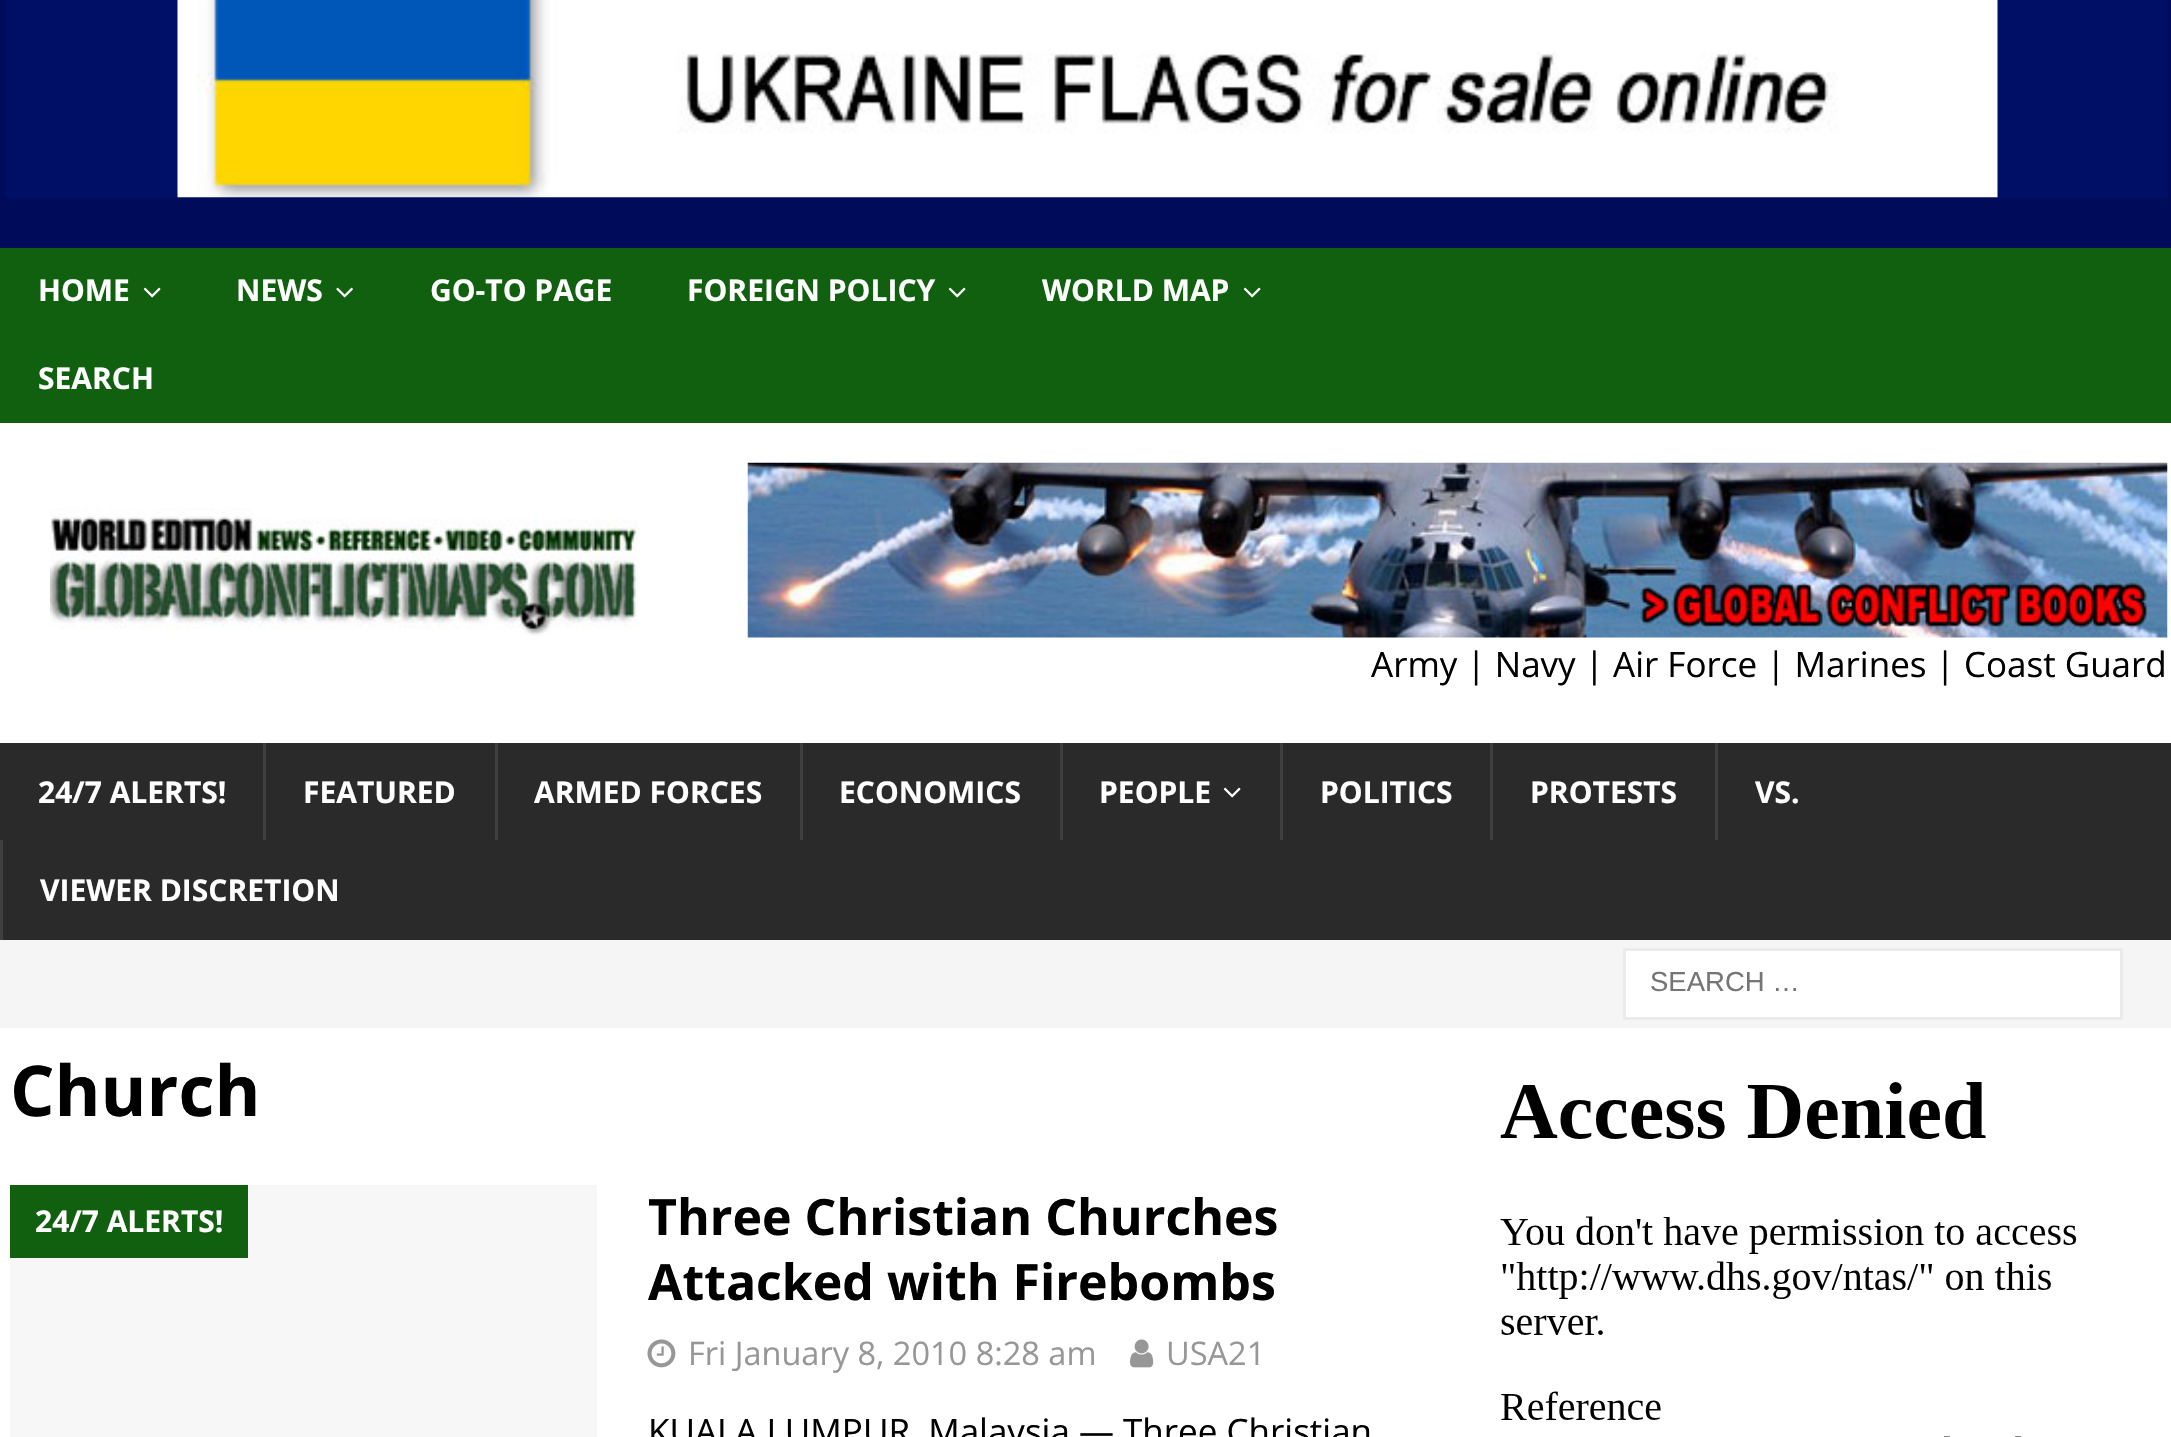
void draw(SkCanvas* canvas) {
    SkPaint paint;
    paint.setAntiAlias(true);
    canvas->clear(0xFF000B59);
    paint.setColor(0xFF000F66);
    canvas->drawRect(SkRect::MakeXYWH(5, 0, 2163, 198), paint);
    canvas->drawImageRect(SkImages::DeferredFromEncodedData(SkData::MakeFromFileName("img1.png")), SkRect::MakeXYWH(177, 0, 1821, 198), SkSamplingOptions());
    paint.setColor(0xFF116010);
    canvas->drawRect(SkRect::MakeXYWH(0, 248, 2171, 175), paint);
    SkFont font1(fontMgr->matchFamilyStyle("Open Sans", SkFontStyle::Bold()), 30);
    font1.setSubpixel(true);
    paint.setColor(0xFFFFFFFF);
    canvas->drawString("HOME", 38, 301, font1, paint);
    canvas->drawImageRect(SkImages::DeferredFromEncodedData(SkData::MakeFromFileName("img2.png")), SkRect::MakeXYWH(143, 287, 18, 11), SkSamplingOptions());
    canvas->drawString("NEWS", 236, 301, font1, paint);
    canvas->drawImageRect(SkImages::DeferredFromEncodedData(SkData::MakeFromFileName("img3.png")), SkRect::MakeXYWH(336, 287, 17, 11), SkSamplingOptions());
    canvas->drawString("GO-TO PAGE", 430, 301, font1, paint);
    canvas->drawString("FOREIGN POLICY", 687, 301, font1, paint);
    canvas->drawImageRect(SkImages::DeferredFromEncodedData(SkData::MakeFromFileName("img2.png")), SkRect::MakeXYWH(948, 287, 18, 11), SkSamplingOptions());
    canvas->drawString("WORLD MAP", 1042, 301, font1, paint);
    canvas->drawImageRect(SkImages::DeferredFromEncodedData(SkData::MakeFromFileName("img2.png")), SkRect::MakeXYWH(1243, 287, 18, 11), SkSamplingOptions());
    canvas->drawString("SEARCH", 38, 389, font1, paint);
    canvas->drawRect(SkRect::MakeXYWH(0, 423, 2171, 320), paint);
    canvas->drawImageRect(SkImages::DeferredFromEncodedData(SkData::MakeFromFileName("img4.png")), SkRect::MakeXYWH(50, 508, 588, 128), SkSamplingOptions());
    canvas->drawImageRect(SkImages::DeferredFromEncodedData(SkData::MakeFromFileName("img5.png")), SkRect::MakeXYWH(747, 462, 1421, 176), SkSamplingOptions());
    SkFont font2(fontMgr->matchFamilyStyle("Open Sans", SkFontStyle::Normal()), 35);
    font2.setSubpixel(true);
    paint.setColor(0xFF000000);
    canvas->drawString("Army | Navy | Air Force | Marines | Coast Guard", 1371, 677, font2, paint);
    paint.setColor(0xFF2A2A2A);
    canvas->drawRect(SkRect::MakeXYWH(0, 743, 2171, 197), paint);
    paint.setColor(0xFFFFFFFF);
    canvas->drawString("24/7 ALERTS!", 38, 803, font1, paint);
    paint.setColor(0xFF3F3F3F);
    canvas->drawRect(SkRect::MakeXYWH(263, 743, 3, 97), paint);
    paint.setColor(0xFFFFFFFF);
    canvas->drawString("FEATURED", 303, 803, font1, paint);
    paint.setColor(0xFF3F3F3F);
    canvas->drawRect(SkRect::MakeXYWH(495, 743, 3, 97), paint);
    paint.setColor(0xFFFFFFFF);
    canvas->drawString("ARMED FORCES", 534, 803, font1, paint);
    paint.setColor(0xFF3F3F3F);
    canvas->drawRect(SkRect::MakeXYWH(800, 743, 3, 97), paint);
    paint.setColor(0xFFFFFFFF);
    canvas->drawString("ECONOMICS", 839, 803, font1, paint);
    paint.setColor(0xFF3F3F3F);
    canvas->drawRect(SkRect::MakeXYWH(1060, 743, 3, 97), paint);
    paint.setColor(0xFFFFFFFF);
    canvas->drawString("PEOPLE", 1099, 803, font1, paint);
    canvas->drawImageRect(SkImages::DeferredFromEncodedData(SkData::MakeFromFileName("img6.png")), SkRect::MakeXYWH(1223, 787, 18, 11), SkSamplingOptions());
    paint.setColor(0xFF3F3F3F);
    canvas->drawRect(SkRect::MakeXYWH(1280, 743, 3, 97), paint);
    paint.setColor(0xFFFFFFFF);
    canvas->drawString("POLITICS", 1320, 803, font1, paint);
    paint.setColor(0xFF3F3F3F);
    canvas->drawRect(SkRect::MakeXYWH(1490, 743, 3, 97), paint);
    paint.setColor(0xFFFFFFFF);
    canvas->drawString("PROTESTS", 1530, 803, font1, paint);
    paint.setColor(0xFF3F3F3F);
    canvas->drawRect(SkRect::MakeXYWH(1715, 743, 3, 97), paint);
    paint.setColor(0xFFFFFFFF);
    canvas->drawString("VS.", 1755, 803, font1, paint);
    paint.setColor(0xFF3F3F3F);
    canvas->drawRect(SkRect::MakeXYWH(0, 840, 3, 100), paint);
    paint.setColor(0xFFFFFFFF);
    canvas->drawString("VIEWER DISCRETION", 40, 901, font1, paint);
    paint.setColor(0xFFF5F5F5);
    canvas->drawRect(SkRect::MakeXYWH(0, 940, 2171, 88), paint);
    paint.setColor(0xFFFFFFFF);
    canvas->drawRect(SkRect::MakeXYWH(1624.5f, 949.5f, 497, 69), paint);
    paint.setStyle(SkPaint::kStroke_Style);
    paint.setStrokeWidth(3);
    paint.setColor(0xFFEBEBEB);
    canvas->drawRect(SkRect::MakeXYWH(1624.5f, 949.5f, 497, 69), paint);
    SkFont font3(fontMgr->matchFamilyStyle("Liberation Sans", SkFontStyle::Normal()), 27.5f);
    font3.setSubpixel(true);
    paint.setStyle(SkPaint::kFill_Style);
    paint.setColor(0xFF757575);
    canvas->drawString("SEARCH …", 1650, 991, font3, paint);
    paint.setColor(0xFFFFFFFF);
    canvas->drawRect(SkRect::MakeXYWH(0, 1028, 2171, 409), paint);
    SkFont font4(fontMgr->matchFamilyStyle("Open Sans", SkFontStyle::Bold()), 70);
    font4.setSubpixel(true);
    paint.setColor(0xFF000000);
    canvas->drawString("Church", 10, 1116, font4, paint);
    paint.setColor(0xFFF7F7F7);
    canvas->drawRect(SkRect::MakeXYWH(10, 1185, 587, 252), paint);
    paint.setColor(0xFF116010);
    canvas->drawRect(SkRect::MakeXYWH(10, 1185, 238, 73), paint);
    paint.setColor(0xFFFFFFFF);
    canvas->drawString("24/7 ALERTS!", 35, 1232, font1, paint);
    SkFont font5(fontMgr->matchFamilyStyle("Open Sans", SkFontStyle::Bold()), 50);
    font5.setSubpixel(true);
    paint.setColor(0xFF000000);
    canvas->drawString("Three Christian Churches", 648, 1235, font5, paint);
    canvas->drawString("Attacked with Firebombs", 648, 1300, font5, paint);
    canvas->drawImageRect(SkImages::DeferredFromEncodedData(SkData::MakeFromFileName("img7.png")), SkRect::MakeXYWH(647, 1339, 29, 29), SkSamplingOptions());
    SkFont font6(fontMgr->matchFamilyStyle("Open Sans", SkFontStyle::Normal()), 32.5f);
    font6.setSubpixel(true);
    paint.setColor(0xFF979797);
    canvas->drawString("Fri January 8, 2010 8:28 am", 688, 1365, font6, paint);
    canvas->drawImageRect(SkImages::DeferredFromEncodedData(SkData::MakeFromFileName("img8.png")), SkRect::MakeXYWH(1130, 1339, 24, 29), SkSamplingOptions());
    canvas->drawString("USA21", 1166, 1365, font6, paint);
    paint.setColor(0xFF000000);
    canvas->drawString("KUALA LUMPUR, Malaysia — Three Christian", 648, 1444, font2, paint);
    canvas->drawImageRect(SkImages::DeferredFromEncodedData(SkData::MakeFromFileName("img9.png")), SkRect::MakeXYWH(1500, 1082, 577, 355), SkSamplingOptions());
}
